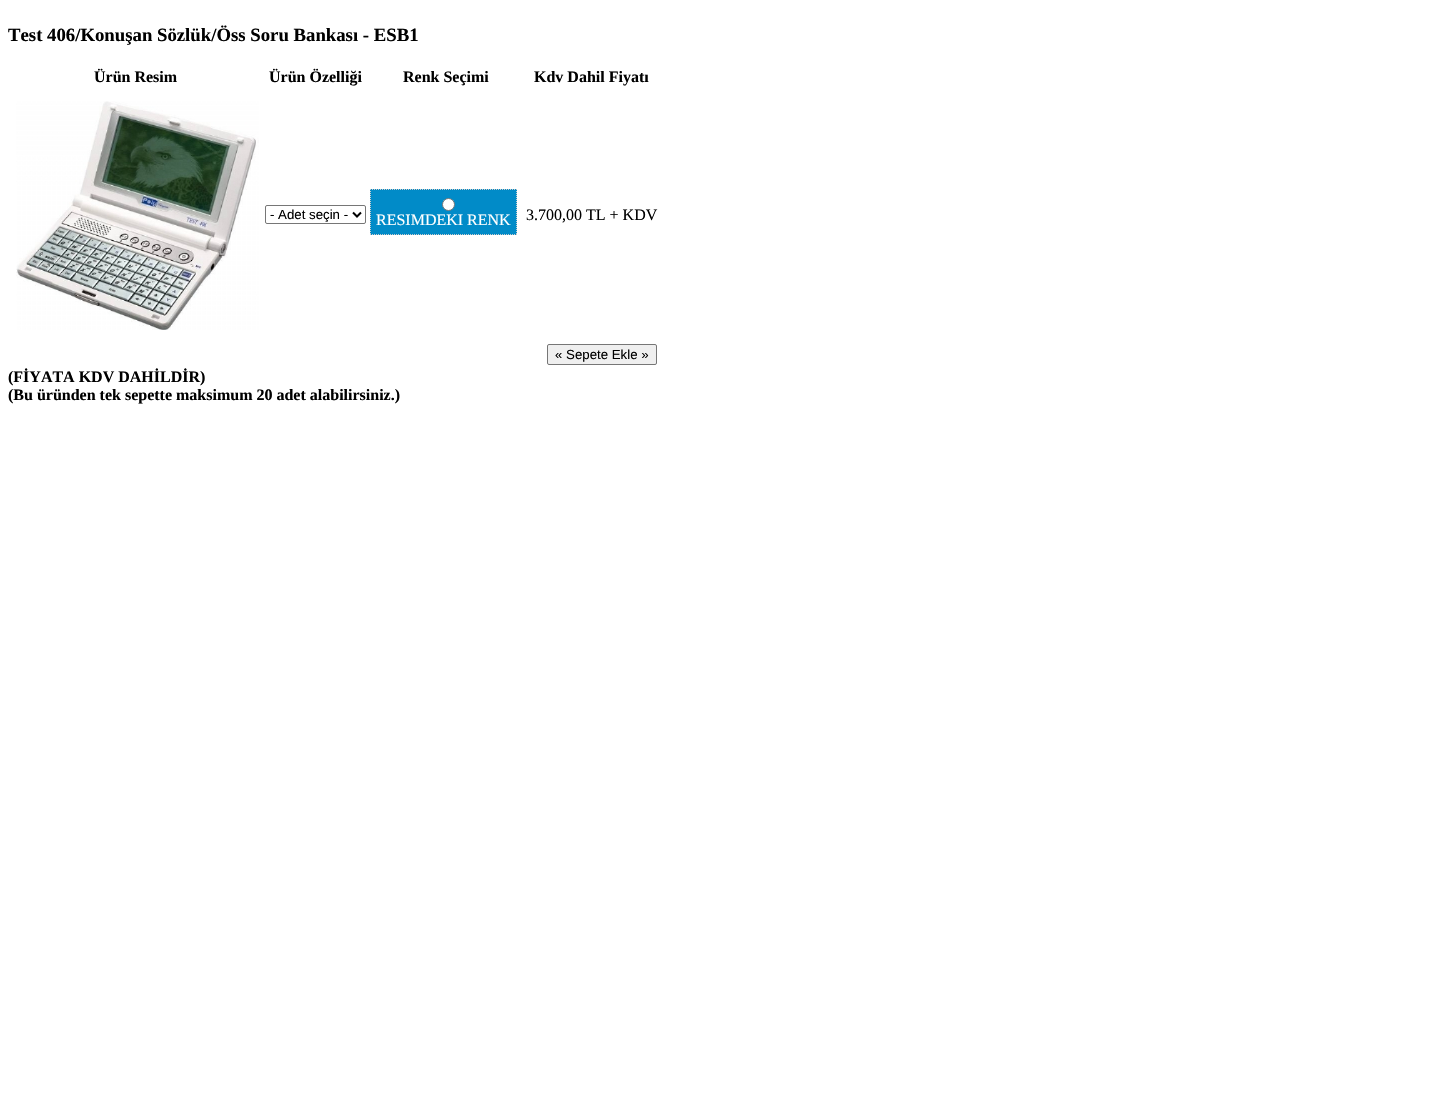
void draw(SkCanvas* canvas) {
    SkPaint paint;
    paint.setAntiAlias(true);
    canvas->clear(0xFFFFFFFF);
    SkFont font1(fontMgr->matchFamilyStyle("Liberation Serif", SkFontStyle::Bold()), 18.75f);
    font1.setSubpixel(true);
    paint.setColor(0xFF000000);
    canvas->drawString("Test 406/Konuşan Sözlük/Öss Soru Bankası - ESB1", 8, 41, font1, paint);
    SkFont font2(fontMgr->matchFamilyStyle("Liberation Serif", SkFontStyle::Bold()), 16);
    font2.setSubpixel(true);
    canvas->drawString("Ürün Resim", 94, 82, font2, paint);
    canvas->drawString("Ürün Özelliği", 269, 82, font2, paint);
    canvas->drawString("Renk Seçimi", 403, 82, font2, paint);
    canvas->drawString("Kdv Dahil Fiyatı", 534, 82, font2, paint);
    canvas->drawImageRect(SkImages::DeferredFromEncodedData(SkData::MakeFromFileName("img1.png")), SkRect::MakeXYWH(16, 101, 243, 229), SkSamplingOptions());
    paint.setStyle(SkPaint::kStroke_Style);
    paint.setStrokeWidth(1);
    paint.setColor(0xFF767676);
    canvas->drawRoundRect(SkRect::MakeXYWH(265.5f, 205.5f, 100, 18), 1.5f, 1.5f, paint);
    paint.setStrokeWidth(2);
    paint.setColor(0xFF000000);
    canvas->drawPath(SkPathBuilder().moveTo(353, 212.5f).lineTo(357, 216.5f).lineTo(361, 212.5f).detach(), paint);
    SkFont font3(fontMgr->matchFamilyStyle("Liberation Sans", SkFontStyle::Normal()), 13.25f);
    font3.setSubpixel(true);
    paint.setStyle(SkPaint::kFill_Style);
    canvas->drawString("- Adet seçin -", 270, 219, font3, paint);
    paint.setColor(0xFF018BC8);
    canvas->drawRect(SkRect::MakeXYWH(370, 189, 147, 46), paint);
    paint.setStyle(SkPaint::kStroke_Style);
    paint.setStrokeWidth(1);
    paint.setColor(0xFFCCCCCC);
    paint.setPathEffect(SkDashPathEffect::Make({{1, 1}}, 0));
    canvas->drawPath(SkPathBuilder().moveTo(370, 189.5f).lineTo(517, 189.5f).detach(), paint);
    paint.setPathEffect(nullptr);
    paint.setPathEffect(SkDashPathEffect::Make({{1, 1}}, 0));
    canvas->drawPath(SkPathBuilder().moveTo(516.5f, 189).lineTo(516.5f, 235).detach(), paint);
    paint.setPathEffect(nullptr);
    paint.setPathEffect(SkDashPathEffect::Make({{1, 1}}, 0));
    canvas->drawPath(SkPathBuilder().moveTo(370, 234.5f).lineTo(517, 234.5f).detach(), paint);
    paint.setPathEffect(nullptr);
    paint.setPathEffect(SkDashPathEffect::Make({{1, 1}}, 0));
    canvas->drawPath(SkPathBuilder().moveTo(370.5f, 189).lineTo(370.5f, 235).detach(), paint);
    paint.setPathEffect(nullptr);
    paint.setStyle(SkPaint::kFill_Style);
    paint.setColor(0xFFFFFFFF);
    canvas->drawCircle(448.5f, 204.5f, 6, paint);
    paint.setStyle(SkPaint::kStroke_Style);
    paint.setColor(0xFF767676);
    canvas->drawCircle(448.5f, 204.5f, 6, paint);
    SkFont font4(fontMgr->matchFamilyStyle("Liberation Serif", SkFontStyle::Normal()), 16);
    font4.setSubpixel(true);
    paint.setStyle(SkPaint::kFill_Style);
    paint.setColor(0xFFFFFFFF);
    canvas->drawString("RESIMDEKI RENK", 376, 225, font4, paint);
    paint.setColor(0xFF000000);
    canvas->drawString("3.700,00 TL + KDV", 526, 220, font4, paint);
    paint.setColor(0xFFEFEFEF);
    canvas->drawRoundRect(SkRect::MakeXYWH(547.5f, 344.5f, 109, 20), 1.5f, 1.5f, paint);
    paint.setStyle(SkPaint::kStroke_Style);
    paint.setColor(0xFF767676);
    canvas->drawRoundRect(SkRect::MakeXYWH(547.5f, 344.5f, 109, 20), 1.5f, 1.5f, paint);
    paint.setStyle(SkPaint::kFill_Style);
    paint.setColor(0xFF000000);
    canvas->drawString("« Sepete Ekle »", 555, 359, font3, paint);
    canvas->drawString("(FİYATA KDV DAHİLDİR)", 8, 382, font2, paint);
    canvas->drawString("(Bu üründen tek sepette maksimum 20 adet alabilirsiniz.)", 8, 400, font2, paint);
}
